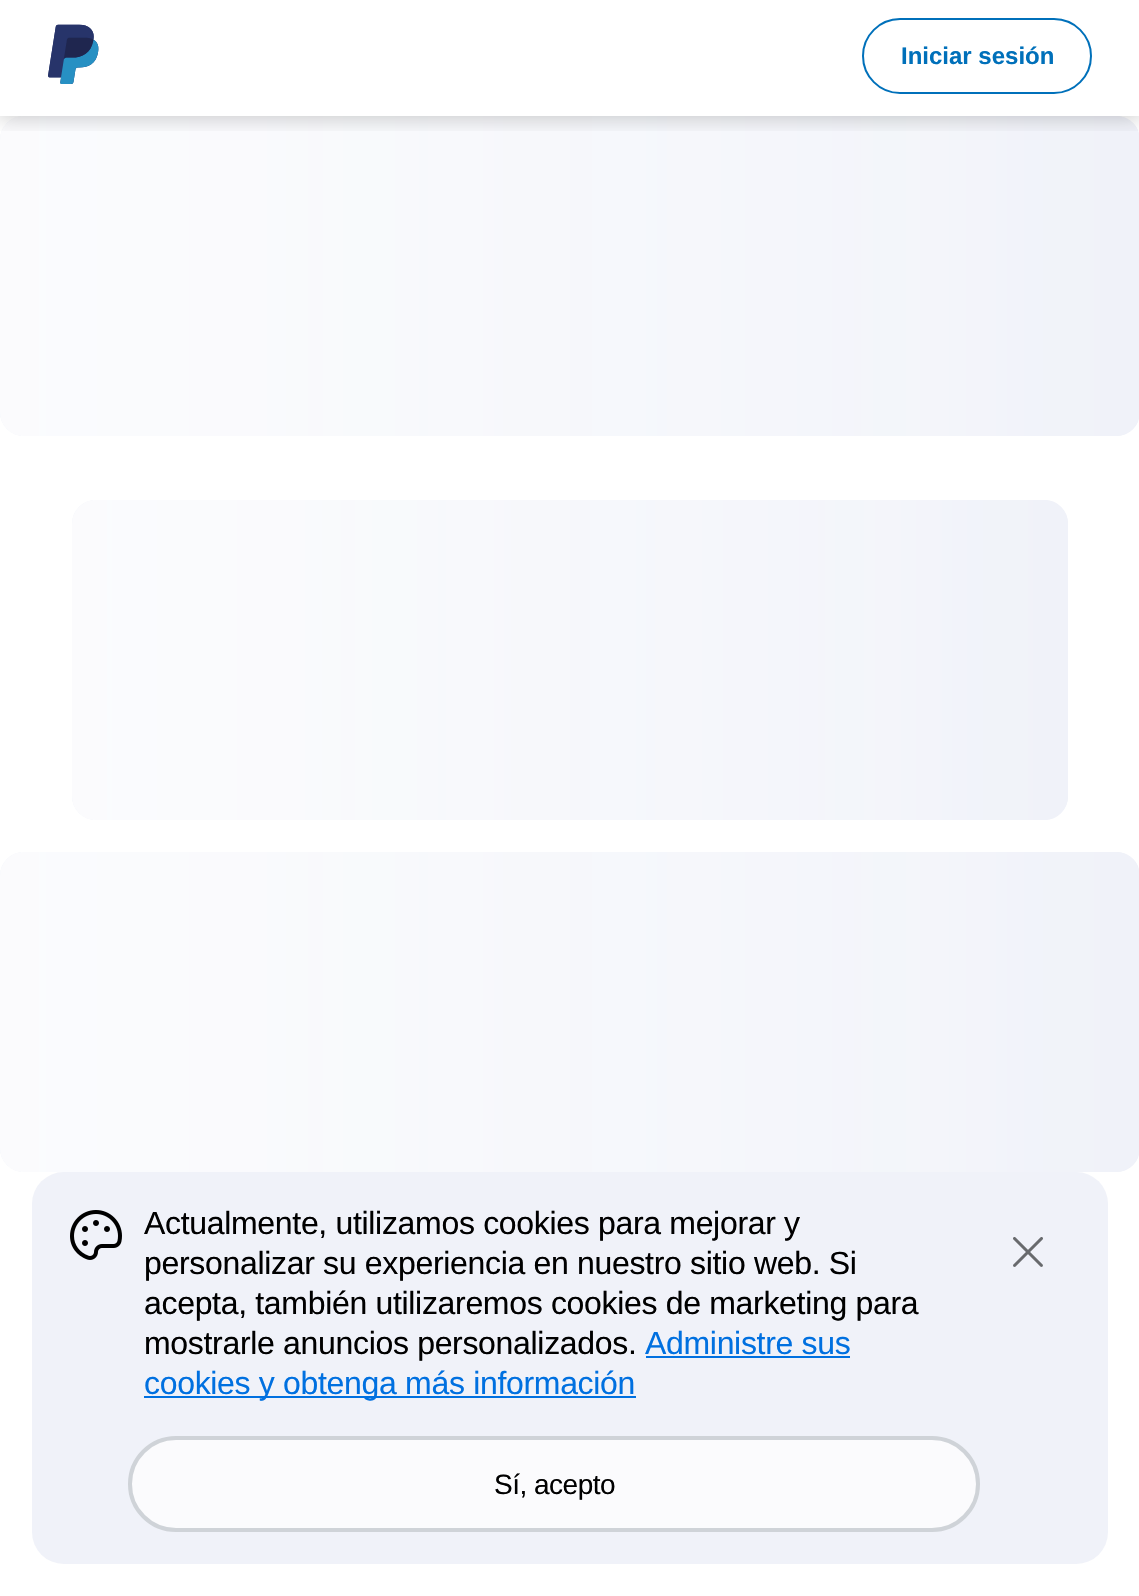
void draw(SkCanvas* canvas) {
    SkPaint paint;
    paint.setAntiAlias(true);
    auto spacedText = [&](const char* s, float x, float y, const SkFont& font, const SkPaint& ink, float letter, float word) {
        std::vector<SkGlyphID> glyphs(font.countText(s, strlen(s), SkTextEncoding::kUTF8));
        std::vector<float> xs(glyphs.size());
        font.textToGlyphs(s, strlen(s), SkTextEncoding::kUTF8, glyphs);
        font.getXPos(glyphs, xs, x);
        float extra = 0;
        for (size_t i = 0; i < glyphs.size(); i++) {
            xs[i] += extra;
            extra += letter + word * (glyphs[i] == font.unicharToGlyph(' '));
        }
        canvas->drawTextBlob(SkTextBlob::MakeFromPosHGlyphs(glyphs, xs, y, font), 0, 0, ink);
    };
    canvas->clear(0xFFFFFFFF);
    paint.setColor(0xFFF0F2F9);
    canvas->drawRoundRect(SkRect::MakeXYWH(0, 116, 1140, 320), 24, 24, paint);
    canvas->save();
    canvas->clipPath(SkPathBuilder().moveTo(24, 116).lineTo(1116, 116).cubicTo(1129.5f, 116, 1140, 126.5f, 1140, 140).lineTo(1140, 412).cubicTo(1140, 425.5f, 1129.5f, 436, 1116, 436).lineTo(24, 436).cubicTo(10.5f, 436, 0, 425.5f, 0, 412).lineTo(0, 140).cubicTo(0, 126.5f, 10.5f, 116, 24, 116).close().detach(), true);
    {
        const SkColor colors[] = {0xFFF0F2F9, 0xB3FFFFFF, 0xFFF0F2F9};
        const float stops[] = {0, 0.5f, 1};
        const SkPoint ends[] = {{-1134, 276}, {1138, 276}};
        paint.setShader(SkGradientShader::MakeLinear(ends, colors, stops, 3, SkTileMode::kClamp));
        paint.setAlpha(255);
    }
    canvas->drawPath(SkPathBuilder().moveTo(24, 116).lineTo(1138, 116).lineTo(1138, 436).lineTo(24, 436).cubicTo(10.5f, 436, 0, 425.5f, 0, 412).lineTo(0, 140).cubicTo(0, 126.5f, 10.5f, 116, 24, 116).close().detach(), paint);
    canvas->restore();
    canvas->save();
    canvas->clipRect(SkRect::MakeXYWH(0, 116, 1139, 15));
    paint.setShader(nullptr);
    paint.setColor(0x33000000);
    paint.setMaskFilter(SkMaskFilter::MakeBlur(kNormal_SkBlurStyle, 10));
    canvas->drawRect(SkRect::MakeXYWH(-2, -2, 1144, 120), paint);
    paint.setMaskFilter(nullptr);
    canvas->restore();
    canvas->drawImageRect(SkImages::DeferredFromEncodedData(SkData::MakeFromFileName("img1.png")), SkRect::MakeXYWH(48, 24, 51, 60), SkSamplingOptions());
    paint.setStyle(SkPaint::kStroke_Style);
    paint.setStrokeWidth(2);
    paint.setColor(0xFF0070BA);
    canvas->drawRoundRect(SkRect::MakeXYWH(863, 19, 228, 74), 37, 37, paint);
    SkFont font1(fontMgr->matchFamilyStyle("Liberation Sans", SkFontStyle::Bold()), 24);
    font1.setSubpixel(true);
    paint.setStyle(SkPaint::kFill_Style);
    canvas->drawString("Iniciar sesión", 901, 64, font1, paint);
    paint.setColor(0xFFF0F2F9);
    canvas->drawRoundRect(SkRect::MakeXYWH(72, 500, 996, 320), 24, 24, paint);
    canvas->save();
    canvas->clipPath(SkPathBuilder().moveTo(96, 500).lineTo(1044, 500).cubicTo(1057.5f, 500, 1068, 510.5f, 1068, 524).lineTo(1068, 796).cubicTo(1068, 809.5f, 1057.5f, 820, 1044, 820).lineTo(96, 820).cubicTo(82.5f, 820, 72, 809.5f, 72, 796).lineTo(72, 524).cubicTo(72, 510.5f, 82.5f, 500, 96, 500).close().detach(), true);
    {
        const SkColor colors[] = {0xFFF0F2F9, 0xB3FFFFFF, 0xFFF0F2F9};
        const float stops[] = {0, 0.5f, 1};
        const SkPoint ends[] = {{-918, 660}, {1066, 660}};
        paint.setShader(SkGradientShader::MakeLinear(ends, colors, stops, 3, SkTileMode::kClamp));
        paint.setAlpha(255);
    }
    canvas->drawPath(SkPathBuilder().moveTo(96, 500).lineTo(1066, 500).lineTo(1066, 820).lineTo(96, 820).cubicTo(82.5f, 820, 72, 809.5f, 72, 796).lineTo(72, 524).cubicTo(72, 510.5f, 82.5f, 500, 96, 500).close().detach(), paint);
    {
        const SkColor colors[] = {0xFFF0F2F9, 0xB3FFFFFF, 0xFFF0F2F9};
        const float stops[] = {0, 0.5f, 1};
        const SkPoint ends[] = {{1066, 660}, {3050, 660}};
        paint.setShader(SkGradientShader::MakeLinear(ends, colors, stops, 3, SkTileMode::kClamp));
        paint.setAlpha(255);
    }
    canvas->drawRect(SkRect::MakeXYWH(1066, 514, 2, 292), paint);
    canvas->restore();
    paint.setShader(nullptr);
    paint.setColor(0xFFF0F2F9);
    canvas->drawRoundRect(SkRect::MakeXYWH(0, 852, 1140, 320), 24, 24, paint);
    canvas->save();
    canvas->clipPath(SkPathBuilder().moveTo(24, 852).lineTo(1116, 852).cubicTo(1129.5f, 852, 1140, 862.5f, 1140, 876).lineTo(1140, 1148).cubicTo(1140, 1161.5f, 1129.5f, 1172, 1116, 1172).lineTo(24, 1172).cubicTo(10.5f, 1172, 0, 1161.5f, 0, 1148).lineTo(0, 876).cubicTo(0, 862.5f, 10.5f, 852, 24, 852).close().detach(), true);
    {
        const SkColor colors[] = {0xFFF0F2F9, 0xB3FFFFFF, 0xFFF0F2F9};
        const float stops[] = {0, 0.5f, 1};
        const SkPoint ends[] = {{-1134, 1012}, {1138, 1012}};
        paint.setShader(SkGradientShader::MakeLinear(ends, colors, stops, 3, SkTileMode::kClamp));
        paint.setAlpha(255);
    }
    canvas->drawPath(SkPathBuilder().moveTo(24, 852).lineTo(1138, 852).lineTo(1138, 1172).lineTo(24, 1172).cubicTo(10.5f, 1172, 0, 1161.5f, 0, 1148).lineTo(0, 876).cubicTo(0, 862.5f, 10.5f, 852, 24, 852).close().detach(), paint);
    canvas->restore();
    paint.setShader(nullptr);
    paint.setColor(0xFFF0F2F9);
    canvas->drawRoundRect(SkRect::MakeXYWH(32, 1172, 1076, 392), 32, 32, paint);
    canvas->drawImageRect(SkImages::DeferredFromEncodedData(SkData::MakeFromFileName("img2.png")), SkRect::MakeXYWH(70, 1210, 52, 50), SkSamplingOptions());
    SkFont font2(fontMgr->matchFamilyStyle("Liberation Sans", SkFontStyle::Normal()), 32);
    font2.setSubpixel(true);
    paint.setColor(0xFF000000);
    spacedText("Actualmente, utilizamos cookies para mejorar y", 144, 1234, font2, paint, -0.32f, 0);
    spacedText("personalizar su experiencia en nuestro sitio web. Si", 144, 1274, font2, paint, -0.32f, 0);
    spacedText("acepta, también utilizaremos cookies de marketing para", 144, 1314, font2, paint, -0.32f, 0);
    spacedText("mostrarle anuncios personalizados.", 144, 1354, font2, paint, -0.32f, 0);
    paint.setColor(0xFF0070E0);
    spacedText("Administre sus", 645, 1354, font2, paint, -0.32f, 0);
    canvas->drawRect(SkRect::MakeXYWH(646, 1356, 204, 2), paint);
    canvas->drawRect(SkRect::MakeXYWH(144, 1396, 492, 2), paint);
    spacedText("cookies y obtenga más información", 144, 1394, font2, paint, -0.32f, 0);
    paint.setColor(0xFFFBFBFD);
    canvas->drawRoundRect(SkRect::MakeXYWH(130, 1438, 848, 92), 46, 46, paint);
    paint.setStyle(SkPaint::kStroke_Style);
    paint.setStrokeWidth(4);
    paint.setColor(0xFFCFD3D8);
    canvas->drawRoundRect(SkRect::MakeXYWH(130, 1438, 848, 92), 46, 46, paint);
    SkFont font3(fontMgr->matchFamilyStyle("Liberation Sans", SkFontStyle::Normal()), 28);
    font3.setSubpixel(true);
    paint.setStyle(SkPaint::kFill_Style);
    paint.setColor(0xFF000000);
    spacedText("Sí, acepto", 494, 1494, font3, paint, -0.5f, 0);
    canvas->drawImageRect(SkImages::DeferredFromEncodedData(SkData::MakeFromFileName("img3.png")), SkRect::MakeXYWH(1013, 1237, 30, 30), SkSamplingOptions());
}
